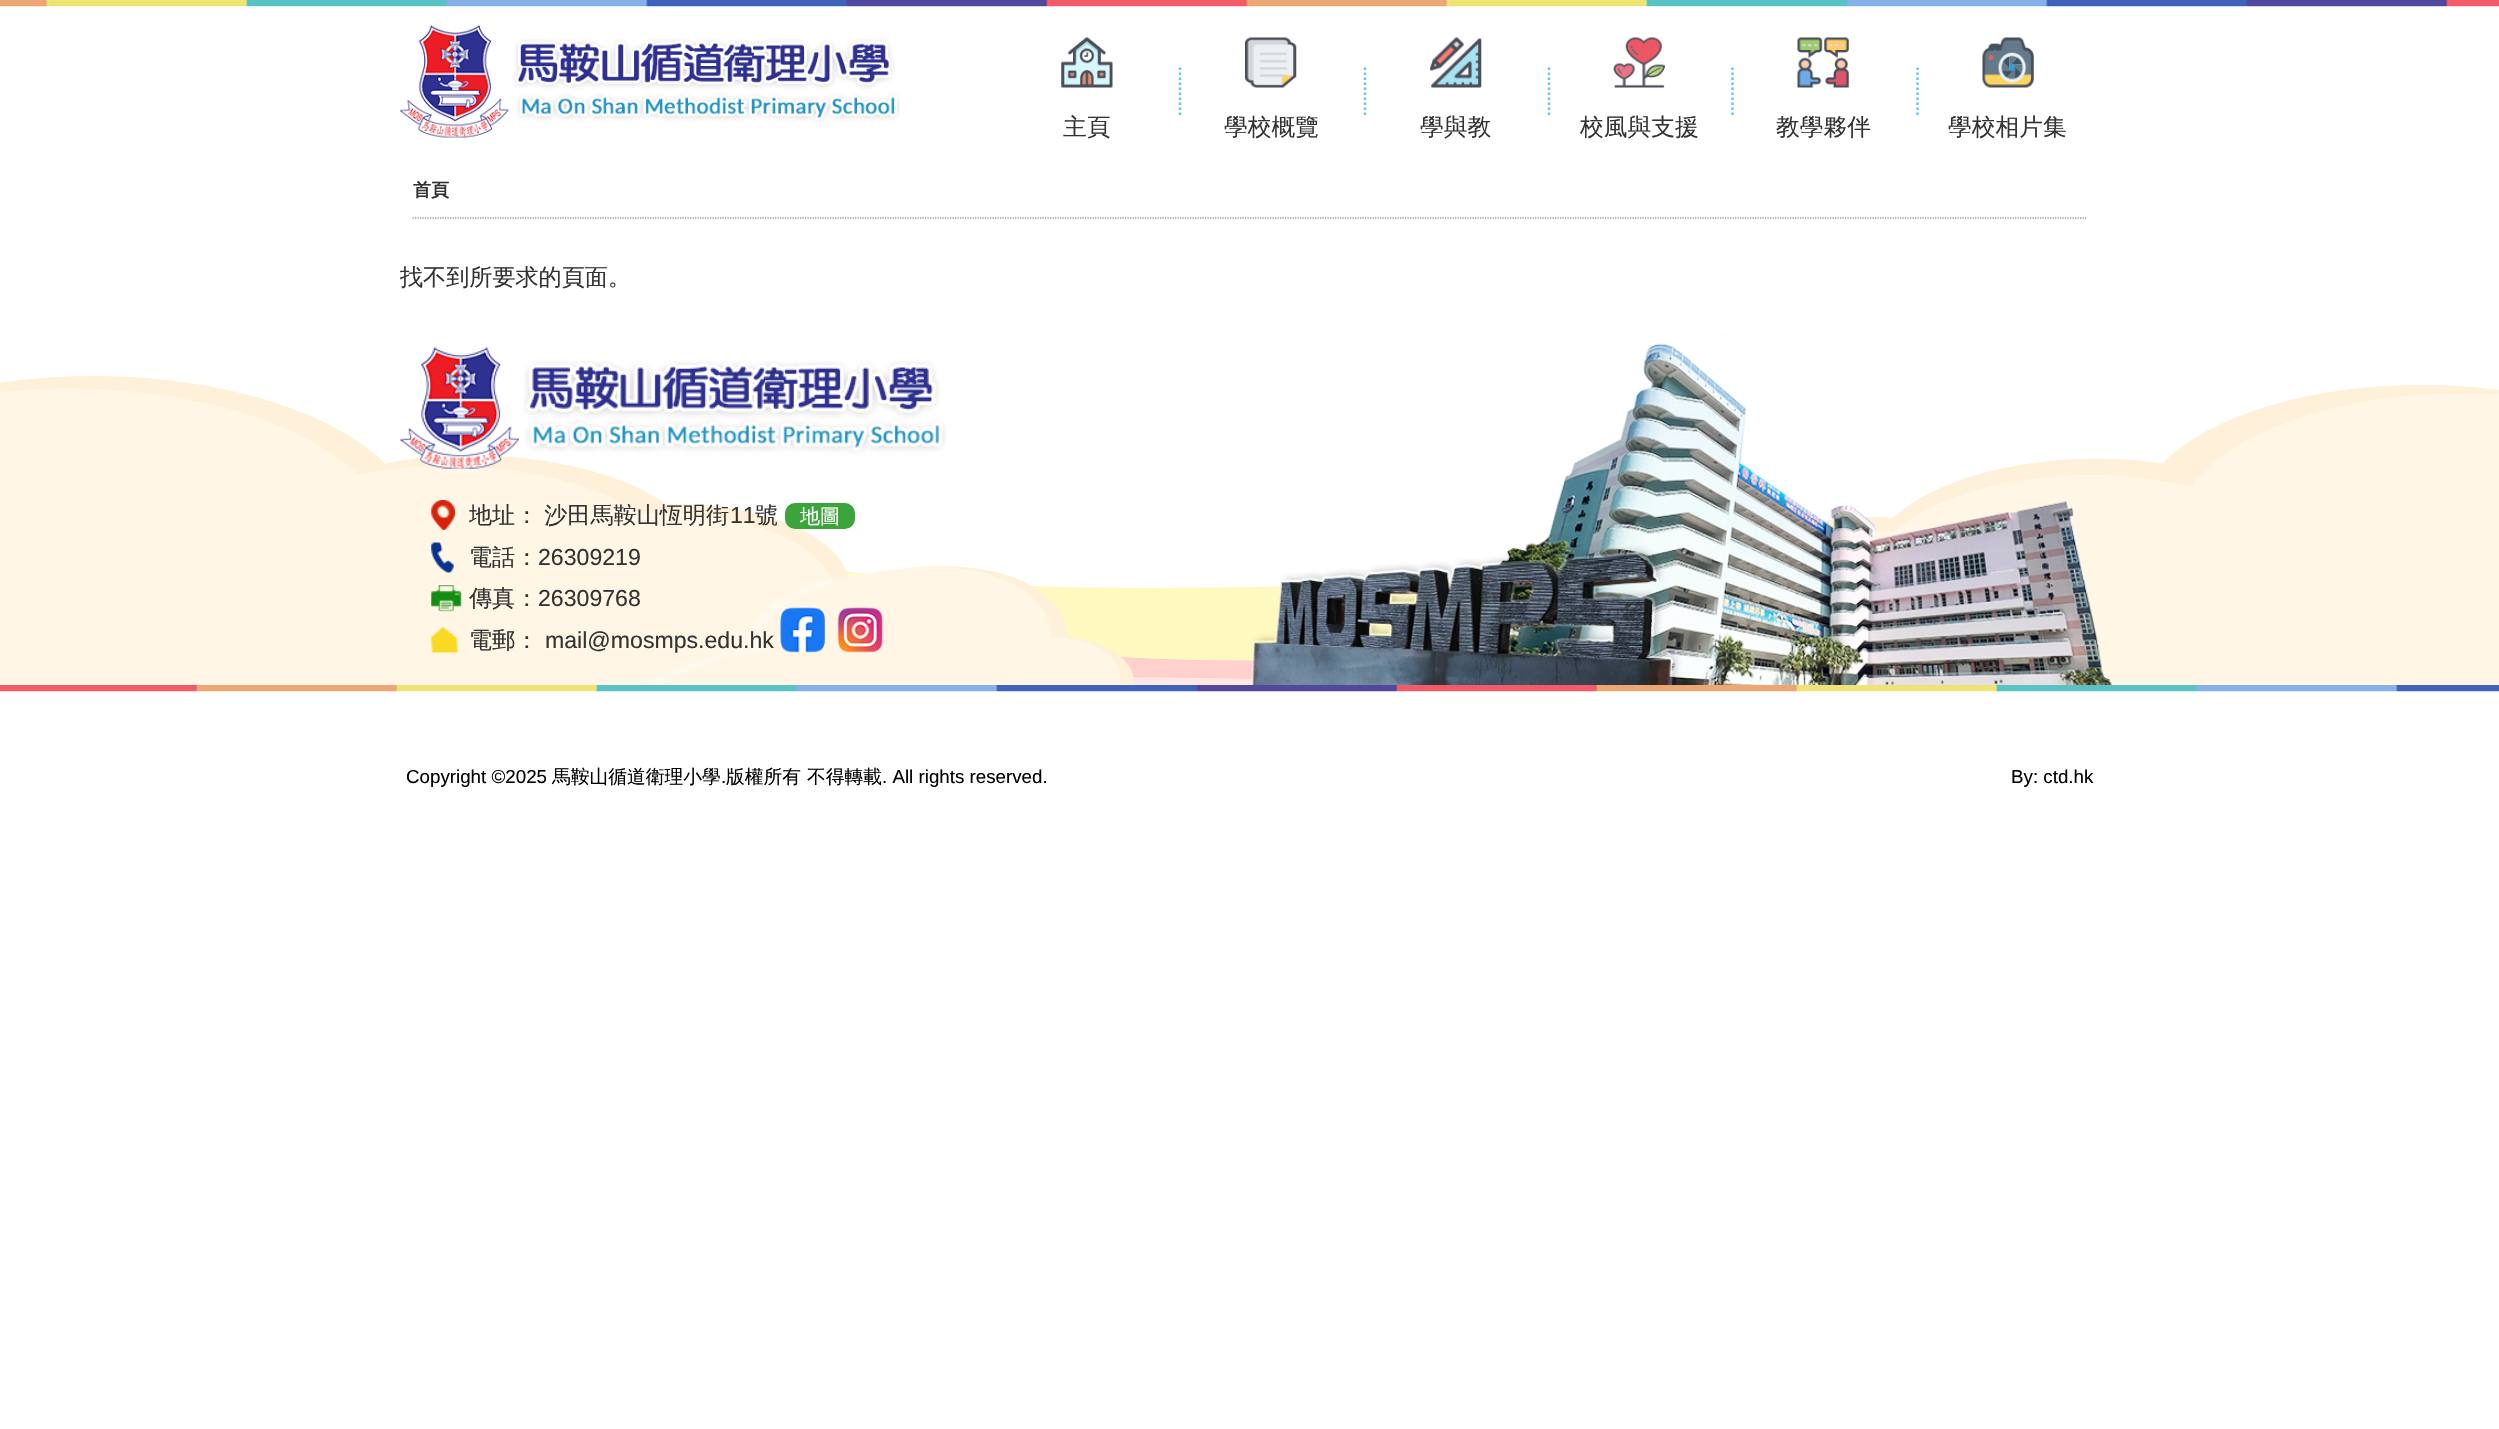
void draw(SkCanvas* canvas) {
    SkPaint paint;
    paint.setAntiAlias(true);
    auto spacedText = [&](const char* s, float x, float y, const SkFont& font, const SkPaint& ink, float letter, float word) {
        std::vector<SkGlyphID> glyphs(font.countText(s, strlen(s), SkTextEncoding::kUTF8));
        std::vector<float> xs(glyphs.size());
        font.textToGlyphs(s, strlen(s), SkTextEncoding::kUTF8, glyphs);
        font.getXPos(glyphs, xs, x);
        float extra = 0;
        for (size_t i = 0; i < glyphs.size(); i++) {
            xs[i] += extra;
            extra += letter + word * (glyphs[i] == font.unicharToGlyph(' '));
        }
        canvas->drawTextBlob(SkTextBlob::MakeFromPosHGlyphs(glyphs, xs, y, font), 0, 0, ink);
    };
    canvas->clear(0xFFFFFFFF);
    canvas->drawImageRect(SkImages::DeferredFromEncodedData(SkData::MakeFromFileName("img1.png")), SkRect::MakeXYWH(0, 0, 2499, 7), SkSamplingOptions());
    canvas->drawImageRect(SkImages::DeferredFromEncodedData(SkData::MakeFromFileName("img2.png")), SkRect::MakeXYWH(400, 25, 500, 113), SkSamplingOptions());
    canvas->drawImageRect(SkImages::DeferredFromEncodedData(SkData::MakeFromFileName("img3.png")), SkRect::MakeXYWH(1061, 37, 52, 51), SkSamplingOptions());
    SkFont font1(fontMgr->matchFamilyStyle("WenQuanYi Zen Hei", SkFontStyle(500, SkFontStyle::kNormal_Width, SkFontStyle::kUpright_Slant)), 23.75f);
    font1.setSubpixel(true);
    paint.setColor(0xFF333333);
    canvas->drawString("主頁", 1063, 135, font1, paint);
    paint.setStyle(SkPaint::kStroke_Style);
    paint.setStrokeWidth(2.5f);
    paint.setColor(0xFF69C6F1);
    paint.setPathEffect(SkDashPathEffect::Make({{2.5f, 2.5f}}, 0));
    canvas->drawPath(SkPathBuilder().moveTo(1180, 67.5f).lineTo(1180, 117.5f).detach(), paint);
    paint.setPathEffect(nullptr);
    canvas->drawImageRect(SkImages::DeferredFromEncodedData(SkData::MakeFromFileName("img4.png")), SkRect::MakeXYWH(1245, 37, 52, 51), SkSamplingOptions());
    paint.setStyle(SkPaint::kFill_Style);
    paint.setColor(0xFF333333);
    canvas->drawString("學校概覽", 1224, 135, font1, paint);
    paint.setStyle(SkPaint::kStroke_Style);
    paint.setColor(0xFF69C6F1);
    paint.setPathEffect(SkDashPathEffect::Make({{2.5f, 2.5f}}, 0));
    canvas->drawPath(SkPathBuilder().moveTo(1365, 67.5f).lineTo(1365, 117.5f).detach(), paint);
    paint.setPathEffect(nullptr);
    canvas->drawImageRect(SkImages::DeferredFromEncodedData(SkData::MakeFromFileName("img5.png")), SkRect::MakeXYWH(1430, 37, 52, 51), SkSamplingOptions());
    paint.setStyle(SkPaint::kFill_Style);
    paint.setColor(0xFF333333);
    canvas->drawString("學與教", 1420, 135, font1, paint);
    paint.setStyle(SkPaint::kStroke_Style);
    paint.setColor(0xFF69C6F1);
    paint.setPathEffect(SkDashPathEffect::Make({{2.5f, 2.5f}}, 0));
    canvas->drawPath(SkPathBuilder().moveTo(1549, 67.5f).lineTo(1549, 117.5f).detach(), paint);
    paint.setPathEffect(nullptr);
    canvas->drawImageRect(SkImages::DeferredFromEncodedData(SkData::MakeFromFileName("img6.png")), SkRect::MakeXYWH(1613, 37, 52, 51), SkSamplingOptions());
    paint.setStyle(SkPaint::kFill_Style);
    paint.setColor(0xFF333333);
    canvas->drawString("校風與支援", 1580, 135, font1, paint);
    paint.setStyle(SkPaint::kStroke_Style);
    paint.setColor(0xFF69C6F1);
    paint.setPathEffect(SkDashPathEffect::Make({{2.5f, 2.5f}}, 0));
    canvas->drawPath(SkPathBuilder().moveTo(1732.5f, 67.5f).lineTo(1732.5f, 117.5f).detach(), paint);
    paint.setPathEffect(nullptr);
    canvas->drawImageRect(SkImages::DeferredFromEncodedData(SkData::MakeFromFileName("img7.png")), SkRect::MakeXYWH(1797, 37, 52, 51), SkSamplingOptions());
    paint.setStyle(SkPaint::kFill_Style);
    paint.setColor(0xFF333333);
    canvas->drawString("教學夥伴", 1776, 135, font1, paint);
    paint.setStyle(SkPaint::kStroke_Style);
    paint.setColor(0xFF69C6F1);
    paint.setPathEffect(SkDashPathEffect::Make({{2.5f, 2.5f}}, 0));
    canvas->drawPath(SkPathBuilder().moveTo(1917.5f, 67.5f).lineTo(1917.5f, 117.5f).detach(), paint);
    paint.setPathEffect(nullptr);
    canvas->drawImageRect(SkImages::DeferredFromEncodedData(SkData::MakeFromFileName("img8.png")), SkRect::MakeXYWH(1982, 37, 52, 51), SkSamplingOptions());
    paint.setStyle(SkPaint::kFill_Style);
    paint.setColor(0xFF333333);
    canvas->drawString("學校相片集", 1948, 135, font1, paint);
    paint.setStyle(SkPaint::kStroke_Style);
    paint.setStrokeWidth(1.2f);
    paint.setColor(0xFF666666);
    paint.setPathEffect(SkDashPathEffect::Make({{1.25f, 1.25f}}, 0));
    canvas->drawPath(SkPathBuilder().moveTo(412.5f, 218).lineTo(2087.5f, 218).detach(), paint);
    paint.setPathEffect(nullptr);
    SkFont font2(fontMgr->matchFamilyStyle("WenQuanYi Zen Hei", SkFontStyle::Bold()), 18);
    font2.setSubpixel(true);
    paint.setStyle(SkPaint::kFill_Style);
    paint.setColor(0xFF333333);
    canvas->drawString("首頁", 413, 196, font2, paint);
    SkFont font3(fontMgr->matchFamilyStyle("WenQuanYi Zen Hei", SkFontStyle(500, SkFontStyle::kNormal_Width, SkFontStyle::kUpright_Slant)), 23.1f);
    font3.setSubpixel(true);
    canvas->drawString("找不到所要求的頁面。", 400, 285, font3, paint);
    canvas->drawImageRect(SkImages::DeferredFromEncodedData(SkData::MakeFromFileName("img9.png")), SkRect::MakeXYWH(0, 376, 2499, 309), SkSamplingOptions());
    canvas->drawImageRect(SkImages::DeferredFromEncodedData(SkData::MakeFromFileName("img10.png")), SkRect::MakeXYWH(400, 347, 546, 122), SkSamplingOptions());
    canvas->drawImageRect(SkImages::DeferredFromEncodedData(SkData::MakeFromFileName("img11.png")), SkRect::MakeXYWH(431, 500, 24, 30), SkSamplingOptions());
    spacedText("地址： 沙田馬鞍山恆明街", 469, 523, font3, paint, 0, -1);
    SkFont font4(fontMgr->matchFamilyStyle("Liberation Sans", SkFontStyle::Normal()), 23.1f);
    font4.setSubpixel(true);
    canvas->drawString("11", 730, 523, font4, paint);
    canvas->drawString("號", 755, 523, font3, paint);
    paint.setColor(0xFF3BA53B);
    canvas->drawRoundRect(SkRect::MakeXYWH(785, 503, 70, 26), 10, 10, paint);
    SkFont font5(fontMgr->matchFamilyStyle("WenQuanYi Zen Hei", SkFontStyle(500, SkFontStyle::kNormal_Width, SkFontStyle::kUpright_Slant)), 20);
    font5.setSubpixel(true);
    paint.setColor(0xFFFFFFFF);
    canvas->drawString("地圖", 800, 523, font5, paint);
    canvas->drawImageRect(SkImages::DeferredFromEncodedData(SkData::MakeFromFileName("img12.png")), SkRect::MakeXYWH(431, 542, 23, 31), SkSamplingOptions());
    paint.setColor(0xFF333333);
    canvas->drawString("電話：", 469, 565, font3, paint);
    canvas->drawString("26309219", 538, 565, font4, paint);
    canvas->drawImageRect(SkImages::DeferredFromEncodedData(SkData::MakeFromFileName("img13.png")), SkRect::MakeXYWH(431, 585, 31, 27), SkSamplingOptions());
    canvas->drawString("傳真：", 469, 606, font3, paint);
    canvas->drawString("26309768", 538, 606, font4, paint);
    canvas->drawImageRect(SkImages::DeferredFromEncodedData(SkData::MakeFromFileName("img14.png")), SkRect::MakeXYWH(431, 627, 27, 26), SkSamplingOptions());
    canvas->drawString("電郵：", 469, 648, font3, paint);
    canvas->drawString("mail@mosmps.edu.hk", 545, 648, font4, paint);
    canvas->drawImageRect(SkImages::DeferredFromEncodedData(SkData::MakeFromFileName("img15.png")), SkRect::MakeXYWH(780, 607, 45, 46), SkSamplingOptions());
    canvas->drawImageRect(SkImages::DeferredFromEncodedData(SkData::MakeFromFileName("img16.png")), SkRect::MakeXYWH(837, 607, 46, 46), SkSamplingOptions());
    canvas->drawImageRect(SkImages::DeferredFromEncodedData(SkData::MakeFromFileName("img17.png")), SkRect::MakeXYWH(1251, 333, 861, 352), SkSamplingOptions());
    canvas->drawImageRect(SkImages::DeferredFromEncodedData(SkData::MakeFromFileName("img18.png")), SkRect::MakeXYWH(0, 685, 2499, 7), SkSamplingOptions());
    SkFont font6(fontMgr->matchFamilyStyle("Liberation Sans", SkFontStyle::Normal()), 18.75f);
    font6.setSubpixel(true);
    paint.setColor(0xFF000000);
    canvas->drawString("Copyright ©2025", 406, 783, font6, paint);
    SkFont font7(fontMgr->matchFamilyStyle("WenQuanYi Zen Hei", SkFontStyle(500, SkFontStyle::kNormal_Width, SkFontStyle::kUpright_Slant)), 18.75f);
    font7.setSubpixel(true);
    canvas->drawString("馬鞍山循道衛理小學", 552, 783, font7, paint);
    canvas->drawString(".", 721, 783, font6, paint);
    canvas->drawString("版權所有", 726, 783, font7, paint);
    canvas->drawString("不得轉載", 807, 783, font7, paint);
    canvas->drawString(". All rights reserved.", 882, 783, font6, paint);
    canvas->drawString("By: ctd.hk", 2011, 783, font6, paint);
}
